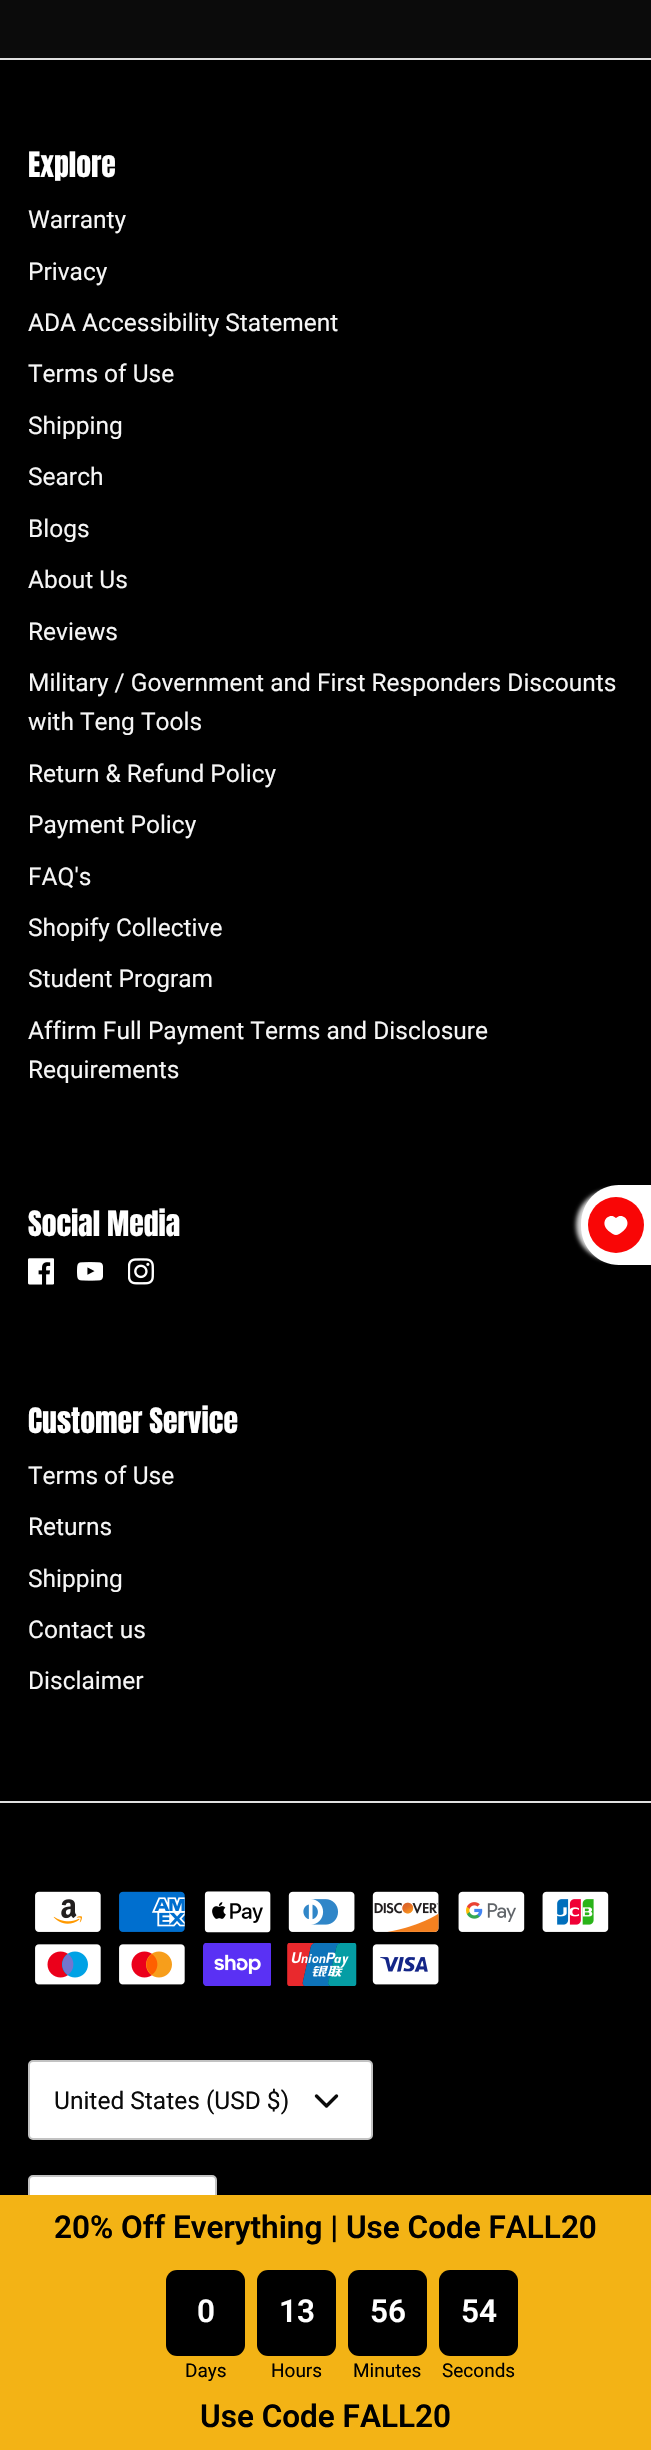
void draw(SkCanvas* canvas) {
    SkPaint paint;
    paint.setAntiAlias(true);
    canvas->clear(0xFF000000);
    paint.setColor(0xFF0B0B0B);
    canvas->drawRect(SkRect::MakeXYWH(0, 0, 651, 58), paint);
    paint.setColor(0xFFE0E0E0);
    canvas->drawRect(SkRect::MakeXYWH(0, 58, 651, 2), paint);
    SkFont font1(fontMgr->matchFamilyStyle("Anton", SkFontStyle::Normal()), 29.75f);
    font1.setSubpixel(true);
    paint.setColor(0xFFFFFFFF);
    canvas->drawString("Explore", 28, 177, font1, paint);
    SkFont font2(fontMgr->matchFamilyStyle("Roboto", SkFontStyle::Normal()), 24.5f);
    font2.setSubpixel(true);
    paint.setColor(0xFFF6F6F6);
    canvas->drawString("Warranty", 28, 228, font2, paint);
    canvas->drawString("Privacy", 28, 280, font2, paint);
    canvas->drawString("ADA Accessibility Statement", 28, 331, font2, paint);
    canvas->drawString("Terms of Use", 28, 382, font2, paint);
    canvas->drawString("Shipping", 28, 434, font2, paint);
    canvas->drawString("Search", 28, 485, font2, paint);
    canvas->drawString("Blogs", 28, 537, font2, paint);
    canvas->drawString("About Us", 28, 588, font2, paint);
    canvas->drawString("Reviews", 28, 640, font2, paint);
    canvas->drawString("Military / Government and First Responders Discounts", 28, 691, font2, paint);
    canvas->drawString("with Teng Tools", 28, 730, font2, paint);
    canvas->drawString("Return & Refund Policy", 28, 782, font2, paint);
    canvas->drawString("Payment Policy", 28, 833, font2, paint);
    canvas->drawString("FAQ's", 28, 885, font2, paint);
    canvas->drawString("Shopify Collective", 28, 936, font2, paint);
    canvas->drawString("Student Program", 28, 987, font2, paint);
    canvas->drawString("Affirm Full Payment Terms and Disclosure", 28, 1039, font2, paint);
    canvas->drawString("Requirements", 28, 1078, font2, paint);
    paint.setColor(0xFFFFFFFF);
    canvas->drawString("Social Media", 28, 1236, font1, paint);
    canvas->drawImageRect(SkImages::DeferredFromEncodedData(SkData::MakeFromFileName("img1.png")), SkRect::MakeXYWH(28, 1258, 26, 27), SkSamplingOptions());
    canvas->drawImageRect(SkImages::DeferredFromEncodedData(SkData::MakeFromFileName("img2.png")), SkRect::MakeXYWH(77, 1262, 26, 19), SkSamplingOptions());
    canvas->drawImageRect(SkImages::DeferredFromEncodedData(SkData::MakeFromFileName("img3.png")), SkRect::MakeXYWH(128, 1258, 26, 27), SkSamplingOptions());
    canvas->drawString("Customer Service", 28, 1433, font1, paint);
    paint.setColor(0xFFF6F6F6);
    canvas->drawString("Terms of Use", 28, 1484, font2, paint);
    canvas->drawString("Returns", 28, 1535, font2, paint);
    canvas->drawString("Shipping", 28, 1587, font2, paint);
    canvas->drawString("Contact us", 28, 1638, font2, paint);
    canvas->drawString("Disclaimer", 28, 1689, font2, paint);
    paint.setColor(0xFFE0E0E0);
    canvas->drawRect(SkRect::MakeXYWH(0, 1801, 651, 2), paint);
    canvas->drawImageRect(SkImages::DeferredFromEncodedData(SkData::MakeFromFileName("img4.png")), SkRect::MakeXYWH(35, 1891, 66, 41), SkSamplingOptions());
    canvas->drawImageRect(SkImages::DeferredFromEncodedData(SkData::MakeFromFileName("img5.png")), SkRect::MakeXYWH(119, 1891, 66, 41), SkSamplingOptions());
    canvas->drawImageRect(SkImages::DeferredFromEncodedData(SkData::MakeFromFileName("img6.png")), SkRect::MakeXYWH(204, 1891, 67, 42), SkSamplingOptions());
    canvas->drawImageRect(SkImages::DeferredFromEncodedData(SkData::MakeFromFileName("img7.png")), SkRect::MakeXYWH(288, 1891, 67, 41), SkSamplingOptions());
    canvas->drawImageRect(SkImages::DeferredFromEncodedData(SkData::MakeFromFileName("img8.png")), SkRect::MakeXYWH(372, 1891, 67, 41), SkSamplingOptions());
    canvas->drawImageRect(SkImages::DeferredFromEncodedData(SkData::MakeFromFileName("img9.png")), SkRect::MakeXYWH(458, 1891, 67, 41), SkSamplingOptions());
    canvas->drawImageRect(SkImages::DeferredFromEncodedData(SkData::MakeFromFileName("img10.png")), SkRect::MakeXYWH(542, 1891, 67, 41), SkSamplingOptions());
    canvas->drawImageRect(SkImages::DeferredFromEncodedData(SkData::MakeFromFileName("img11.png")), SkRect::MakeXYWH(35, 1944, 66, 41), SkSamplingOptions());
    canvas->drawImageRect(SkImages::DeferredFromEncodedData(SkData::MakeFromFileName("img12.png")), SkRect::MakeXYWH(119, 1944, 66, 41), SkSamplingOptions());
    canvas->drawImageRect(SkImages::DeferredFromEncodedData(SkData::MakeFromFileName("img13.png")), SkRect::MakeXYWH(203, 1943, 68, 43), SkSamplingOptions());
    canvas->drawImageRect(SkImages::DeferredFromEncodedData(SkData::MakeFromFileName("img14.png")), SkRect::MakeXYWH(287, 1943, 70, 43), SkSamplingOptions());
    canvas->drawImageRect(SkImages::DeferredFromEncodedData(SkData::MakeFromFileName("img15.png")), SkRect::MakeXYWH(372, 1944, 67, 41), SkSamplingOptions());
    paint.setColor(0xFFFFFFFF);
    canvas->drawRoundRect(SkRect::MakeXYWH(29, 2061, 343, 78), 4, 4, paint);
    paint.setStyle(SkPaint::kStroke_Style);
    paint.setStrokeWidth(2);
    paint.setColor(0xFFC2C2C2);
    canvas->drawRoundRect(SkRect::MakeXYWH(29, 2061, 343, 78), 4, 4, paint);
    paint.setStyle(SkPaint::kFill_Style);
    paint.setColor(0xFF0B0B0B);
    canvas->drawString("United States (USD $)", 54, 2109, font2, paint);
    paint.setStyle(SkPaint::kStroke_Style);
    paint.setStrokeWidth(3.4f);
    paint.setStrokeCap(SkPaint::kRound_Cap);
    paint.setStrokeJoin(SkPaint::kRound_Join);
    canvas->drawPath(SkPathBuilder().moveTo(316.5f, 2096).lineTo(326.5f, 2106).lineTo(336.5f, 2096).detach(), paint);
    paint.setStyle(SkPaint::kFill_Style);
    paint.setColor(0xFFFFFFFF);
    canvas->drawRoundRect(SkRect::MakeXYWH(29, 2176, 187, 79), 4, 4, paint);
    paint.setStyle(SkPaint::kStroke_Style);
    paint.setStrokeWidth(2);
    paint.setStrokeCap(SkPaint::kButt_Cap);
    paint.setStrokeJoin(SkPaint::kMiter_Join);
    paint.setColor(0xFFC2C2C2);
    canvas->drawRoundRect(SkRect::MakeXYWH(29, 2176, 187, 79), 4, 4, paint);
    paint.setStyle(SkPaint::kFill_Style);
    paint.setColor(0xFFF3B315);
    canvas->drawRect(SkRect::MakeXYWH(0, 2195, 651, 255), paint);
    SkFont font3(fontMgr->matchFamilyStyle("Roboto", SkFontStyle(600, SkFontStyle::kNormal_Width, SkFontStyle::kUpright_Slant)), 31.5f);
    font3.setSubpixel(true);
    paint.setColor(0xFF000000);
    canvas->drawString("20% Off Everything | Use Code FALL20", 54, 2238, font3, paint);
    canvas->drawRoundRect(SkRect::MakeXYWH(166, 2270, 79, 86), 11, 11, paint);
    paint.setColor(0xFFFFFFFF);
    canvas->drawString("0", 197, 2322, font3, paint);
    SkFont font4(fontMgr->matchFamilyStyle("Roboto", SkFontStyle::Normal()), 19);
    font4.setSubpixel(true);
    paint.setColor(0xFF000000);
    canvas->drawString("Days", 185, 2377, font4, paint);
    canvas->drawRoundRect(SkRect::MakeXYWH(257, 2270, 79, 86), 11, 11, paint);
    paint.setColor(0xFFFFFFFF);
    canvas->drawString("13", 279, 2322, font3, paint);
    paint.setColor(0xFF000000);
    canvas->drawString("Hours", 271, 2377, font4, paint);
    canvas->drawRoundRect(SkRect::MakeXYWH(348, 2270, 79, 86), 11, 11, paint);
    paint.setColor(0xFFFFFFFF);
    canvas->drawString("56", 370, 2322, font3, paint);
    paint.setColor(0xFF000000);
    canvas->drawString("Minutes", 353, 2377, font4, paint);
    canvas->drawRoundRect(SkRect::MakeXYWH(439, 2270, 79, 86), 11, 11, paint);
    paint.setColor(0xFFFFFFFF);
    canvas->drawString("54", 461, 2322, font3, paint);
    paint.setColor(0xFF000000);
    canvas->drawString("Seconds", 442, 2377, font4, paint);
    canvas->drawString("Use Code FALL20", 200, 2427, font3, paint);
    paint.setColor(0xFFDADADA);
    paint.setMaskFilter(SkMaskFilter::MakeBlur(kNormal_SkBlurStyle, 2));
    canvas->drawRoundRect(SkRect::MakeXYWH(576, 1190, 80, 70), 39, 39, paint);
    paint.setMaskFilter(nullptr);
    paint.setColor(0xFFFFFFFF);
    canvas->drawPath(SkPathBuilder().moveTo(581, 1226).lineTo(581, 1224).cubicTo(581, 1202, 598, 1185, 619, 1185).lineTo(651, 1185).lineTo(651, 1265).lineTo(619, 1265).cubicTo(598, 1265, 581, 1248, 581, 1226).close().detach(), paint);
    paint.setColor(0xFFF90606);
    canvas->drawCircle(616, 1225, 28, paint);
    paint.setColor(0xFFFFFFFF);
    canvas->drawPath(SkPathBuilder().moveTo(616, 1218).cubicTo(609, 1211, 597.5f, 1223, 610, 1232).cubicTo(611.5f, 1233, 614, 1235, 616, 1235).cubicTo(618, 1235, 620.5f, 1233, 622, 1232).cubicTo(634.5f, 1223, 623, 1211, 616, 1218).close().detach(), paint);
}
